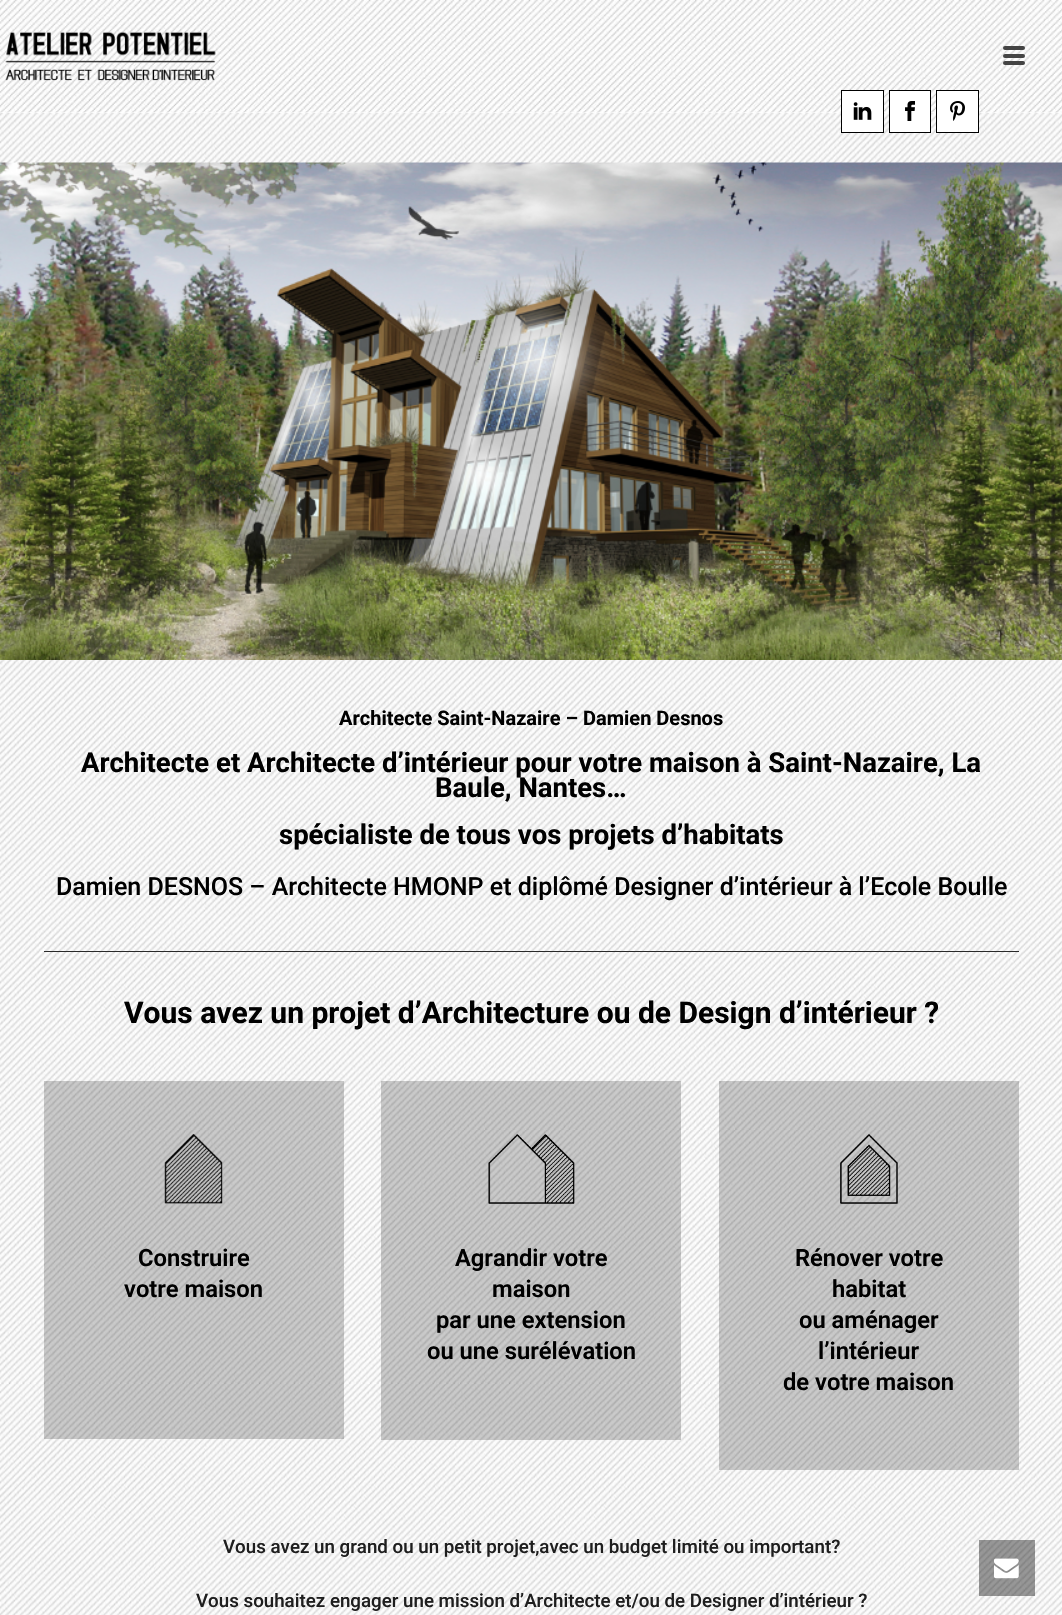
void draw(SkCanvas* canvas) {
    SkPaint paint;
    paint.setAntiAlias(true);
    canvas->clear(0xFFFFFFFF);
    canvas->drawImageRect(SkImages::DeferredFromEncodedData(SkData::MakeFromFileName("img1.png")), SkRect::MakeXYWH(0, 0, 1062, 113), SkSamplingOptions());
    canvas->drawImageRect(SkImages::DeferredFromEncodedData(SkData::MakeFromFileName("img2.png")), SkRect::MakeXYWH(5, 31, 211, 50), SkSamplingOptions());
    paint.setColor(0xFF444444);
    canvas->drawRoundRect(SkRect::MakeXYWH(1003, 46, 22, 4), 2, 2, paint);
    canvas->drawRoundRect(SkRect::MakeXYWH(1003, 54, 22, 4), 2, 2, paint);
    canvas->drawRoundRect(SkRect::MakeXYWH(1003, 61, 22, 4), 2, 2, paint);
    canvas->drawImageRect(SkImages::DeferredFromEncodedData(SkData::MakeFromFileName("img6.png")), SkRect::MakeXYWH(0, 113, 1062, 1502), SkSamplingOptions());
    paint.setColor(0xFFFFFFFF);
    canvas->drawRect(SkRect::MakeXYWH(841.5f, 90.5f, 42, 42), paint);
    paint.setStyle(SkPaint::kStroke_Style);
    paint.setStrokeWidth(1);
    paint.setColor(0xFF000000);
    canvas->drawRect(SkRect::MakeXYWH(841.5f, 90.5f, 42, 42), paint);
    canvas->drawImageRect(SkImages::DeferredFromEncodedData(SkData::MakeFromFileName("img3.png")), SkRect::MakeXYWH(853, 102, 19, 18), SkSamplingOptions());
    paint.setStyle(SkPaint::kFill_Style);
    paint.setColor(0xFFFFFFFF);
    canvas->drawRect(SkRect::MakeXYWH(889.5f, 90.5f, 41, 42), paint);
    paint.setStyle(SkPaint::kStroke_Style);
    paint.setColor(0xFF000000);
    canvas->drawRect(SkRect::MakeXYWH(889.5f, 90.5f, 41, 42), paint);
    canvas->drawImageRect(SkImages::DeferredFromEncodedData(SkData::MakeFromFileName("img4.png")), SkRect::MakeXYWH(905, 101, 10, 20), SkSamplingOptions());
    paint.setStyle(SkPaint::kFill_Style);
    paint.setColor(0xFFFFFFFF);
    canvas->drawRect(SkRect::MakeXYWH(936.5f, 90.5f, 42, 42), paint);
    paint.setStyle(SkPaint::kStroke_Style);
    paint.setColor(0xFF000000);
    canvas->drawRect(SkRect::MakeXYWH(936.5f, 90.5f, 42, 42), paint);
    canvas->drawImageRect(SkImages::DeferredFromEncodedData(SkData::MakeFromFileName("img5.png")), SkRect::MakeXYWH(950, 101, 15, 20), SkSamplingOptions());
    canvas->drawImageRect(SkImages::DeferredFromEncodedData(SkData::MakeFromFileName("img7.png")), SkRect::MakeXYWH(0, 162, 1062, 498), SkSamplingOptions());
    SkFont font1(fontMgr->matchFamilyStyle("Roboto", SkFontStyle::Bold()), 20);
    font1.setSubpixel(true);
    paint.setStyle(SkPaint::kFill_Style);
    canvas->drawString("Architecte Saint-Nazaire – Damien Desnos", 339, 725, font1, paint);
    SkFont font2(fontMgr->matchFamilyStyle("Roboto", SkFontStyle::Bold()), 27.5f);
    font2.setSubpixel(true);
    canvas->drawString("Architecte et Architecte d’intérieur pour votre maison à Saint-Nazaire, La", 81, 772, font2, paint);
    canvas->drawString("Baule, Nantes…", 435, 797, font2, paint);
    canvas->drawString("spécialiste de tous vos projets d’habitats", 279, 844, font2, paint);
    SkFont font3(fontMgr->matchFamilyStyle("Roboto", SkFontStyle(500, SkFontStyle::kNormal_Width, SkFontStyle::kUpright_Slant)), 25);
    font3.setSubpixel(true);
    canvas->drawString("Damien DESNOS – Architecte HMONP et diplômé Designer d’intérieur à l’Ecole Boulle", 56, 895, font3, paint);
    paint.setColor(0xFF2A2A2A);
    canvas->drawRect(SkRect::MakeXYWH(44, 951, 975, 1), paint);
    SkFont font4(fontMgr->matchFamilyStyle("Roboto", SkFontStyle::Bold()), 30);
    font4.setSubpixel(true);
    paint.setColor(0xFF000000);
    canvas->drawString("Vous avez un projet d’Architecture ou de Design d’intérieur ?", 124, 1023, font4, paint);
    paint.setColor(0x33000000);
    canvas->drawRect(SkRect::MakeXYWH(44, 1081, 300, 358), paint);
    canvas->drawImageRect(SkImages::DeferredFromEncodedData(SkData::MakeFromFileName("img8.png")), SkRect::MakeXYWH(164, 1134, 59, 70), SkSamplingOptions());
    SkFont font5(fontMgr->matchFamilyStyle("Roboto", SkFontStyle(600, SkFontStyle::kNormal_Width, SkFontStyle::kUpright_Slant)), 23.75f);
    font5.setSubpixel(true);
    paint.setColor(0xFF000000);
    canvas->drawString("Construire", 138, 1266, font5, paint);
    canvas->drawString("votre maison", 124, 1297, font5, paint);
    paint.setColor(0x33000000);
    canvas->drawRect(SkRect::MakeXYWH(381, 1081, 300, 359), paint);
    canvas->drawImageRect(SkImages::DeferredFromEncodedData(SkData::MakeFromFileName("img9.png")), SkRect::MakeXYWH(488, 1134, 87, 70), SkSamplingOptions());
    paint.setColor(0xFF000000);
    canvas->drawString("Agrandir votre", 455, 1266, font5, paint);
    canvas->drawString("maison", 492, 1297, font5, paint);
    canvas->drawString("par une extension", 436, 1328, font5, paint);
    canvas->drawString("ou une surélévation", 427, 1359, font5, paint);
    paint.setColor(0x33000000);
    canvas->drawRect(SkRect::MakeXYWH(719, 1081, 300, 389), paint);
    canvas->drawImageRect(SkImages::DeferredFromEncodedData(SkData::MakeFromFileName("img10.png")), SkRect::MakeXYWH(840, 1134, 58, 70), SkSamplingOptions());
    paint.setColor(0xFF000000);
    canvas->drawString("Rénover votre", 795, 1266, font5, paint);
    canvas->drawString("habitat", 832, 1297, font5, paint);
    canvas->drawString("ou aménager", 799, 1328, font5, paint);
    canvas->drawString("l’intérieur", 818, 1359, font5, paint);
    canvas->drawString("de votre maison", 783, 1390, font5, paint);
    SkFont font6(fontMgr->matchFamilyStyle("Roboto", SkFontStyle(500, SkFontStyle::kNormal_Width, SkFontStyle::kUpright_Slant)), 18.75f);
    font6.setSubpixel(true);
    paint.setColor(0xFF1E1E1E);
    canvas->drawString("Vous avez un grand ou un petit projet,avec un budget limité ou important?", 223, 1553, font6, paint);
    canvas->drawString("Vous souhaitez engager une mission d’Architecte et/ou de Designer d’intérieur ?", 196, 1607, font6, paint);
    paint.setColor(0x66000000);
    canvas->drawRect(SkRect::MakeXYWH(979, 1540, 56, 56), paint);
    canvas->drawImageRect(SkImages::DeferredFromEncodedData(SkData::MakeFromFileName("img11.png")), SkRect::MakeXYWH(994, 1558, 25, 21), SkSamplingOptions());
}
